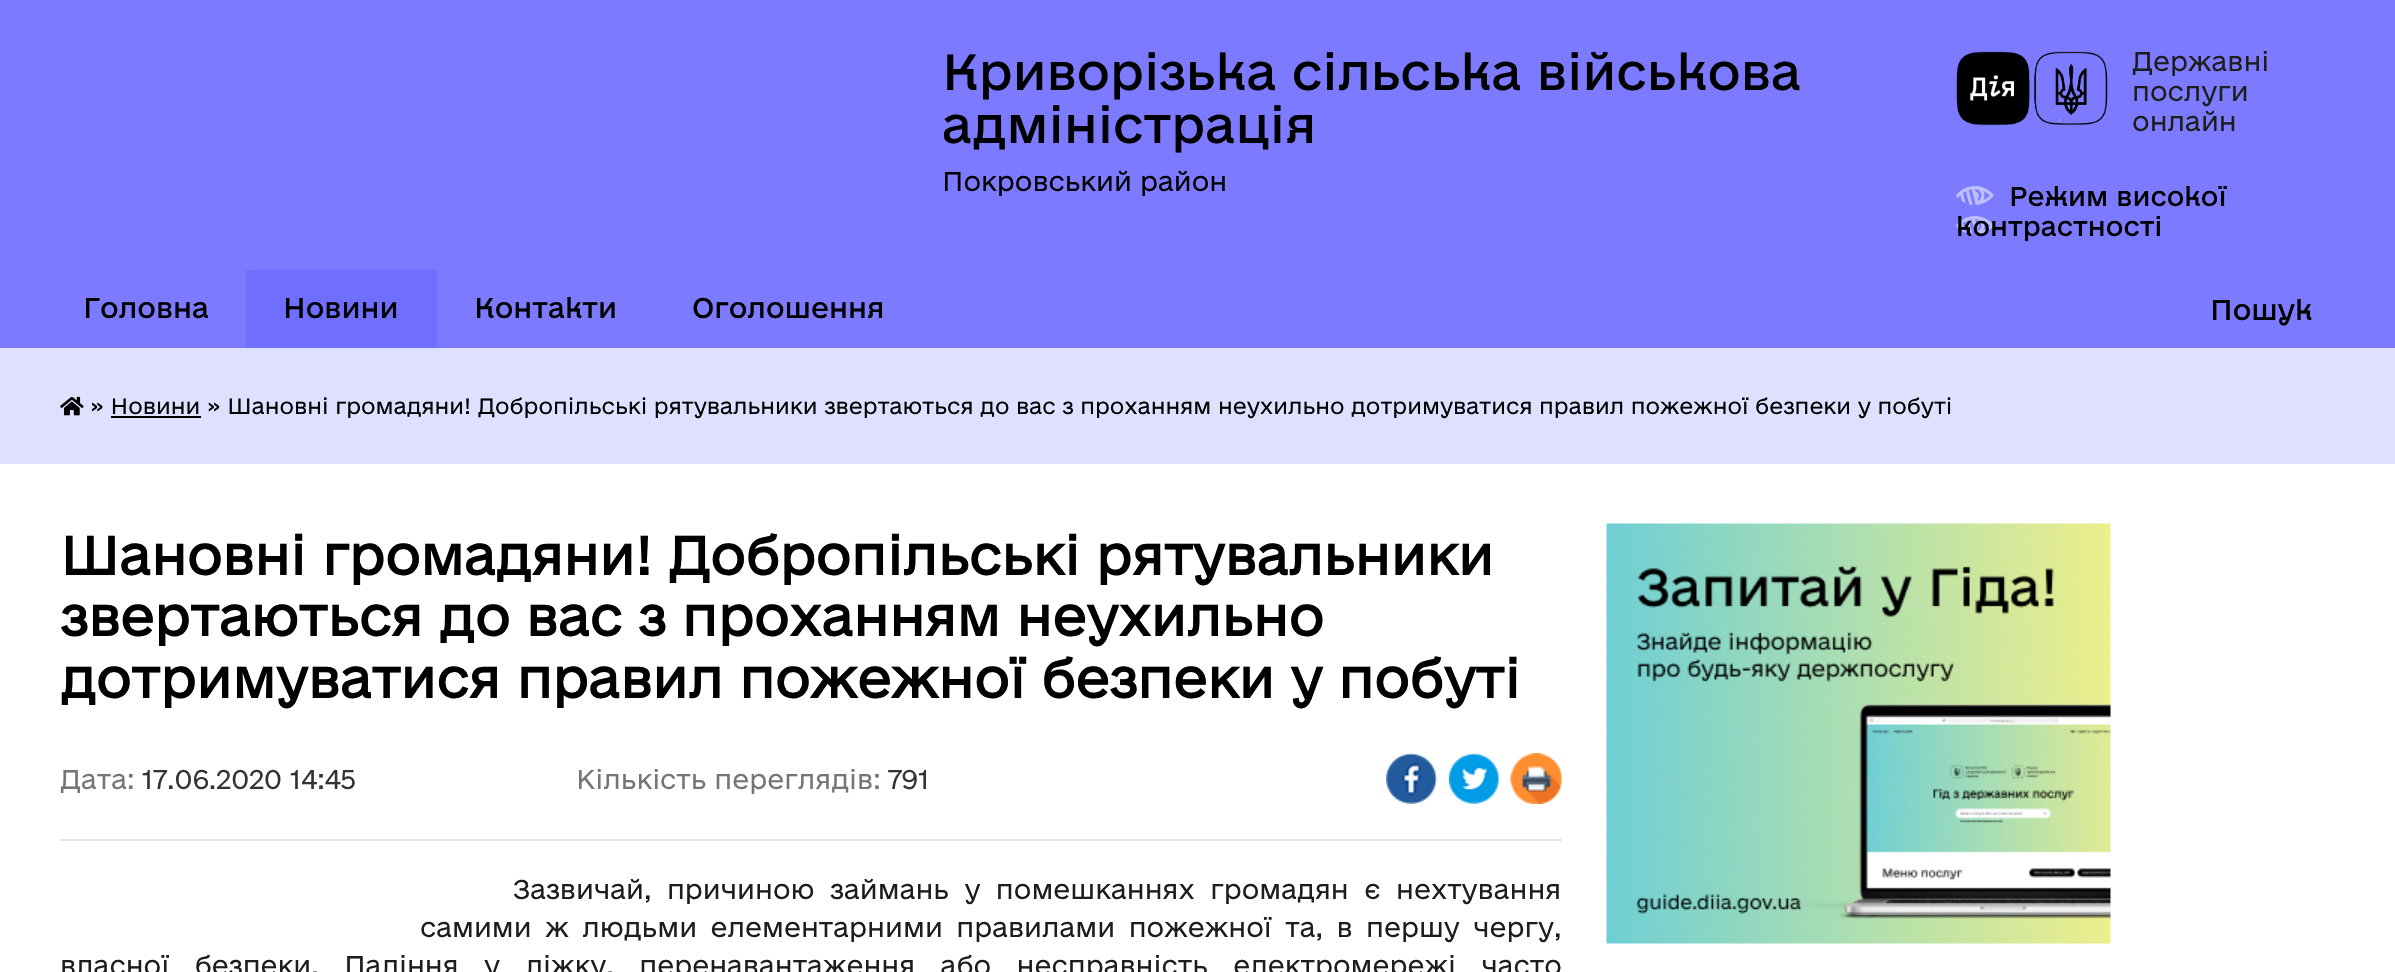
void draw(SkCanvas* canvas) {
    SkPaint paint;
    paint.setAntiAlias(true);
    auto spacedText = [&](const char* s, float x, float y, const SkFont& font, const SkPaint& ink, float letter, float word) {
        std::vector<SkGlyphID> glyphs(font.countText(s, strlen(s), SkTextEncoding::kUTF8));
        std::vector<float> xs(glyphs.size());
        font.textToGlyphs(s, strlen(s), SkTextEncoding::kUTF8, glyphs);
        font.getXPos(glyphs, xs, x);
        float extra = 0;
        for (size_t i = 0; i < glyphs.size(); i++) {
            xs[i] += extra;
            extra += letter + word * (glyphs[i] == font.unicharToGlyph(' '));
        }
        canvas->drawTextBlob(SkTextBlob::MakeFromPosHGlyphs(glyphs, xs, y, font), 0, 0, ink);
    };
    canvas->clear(0xFFFFFFFF);
    paint.setColor(0xFF7C7BFF);
    canvas->drawRect(SkRect::MakeXYWH(0, 0, 2395, 348), paint);
    SkFont font1(fontMgr->matchFamilyStyle("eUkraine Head", SkFontStyle::Normal()), 48);
    font1.setSubpixel(true);
    paint.setColor(0xFF000000);
    canvas->drawString("Криворізька сільська військова", 942, 90, font1, paint);
    canvas->drawString("адміністрація", 942, 143, font1, paint);
    SkFont font2(fontMgr->matchFamilyStyle("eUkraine", SkFontStyle(300, SkFontStyle::kNormal_Width, SkFontStyle::kUpright_Slant)), 25.5f);
    font2.setSubpixel(true);
    canvas->drawString("Покровський район", 942, 191, font2, paint);
    canvas->drawImageRect(SkImages::DeferredFromEncodedData(SkData::MakeFromFileName("img1.png")), SkRect::MakeXYWH(1956, 51, 152, 75), SkSamplingOptions());
    paint.setColor(0xFF1D1D1B);
    canvas->drawString("Державні", 2132, 71, font2, paint);
    canvas->drawString("послуги", 2132, 101, font2, paint);
    canvas->drawString("онлайн", 2132, 131, font2, paint);
    canvas->drawImageRect(SkImages::DeferredFromEncodedData(SkData::MakeFromFileName("img2.png")), SkRect::MakeXYWH(1956, 186, 38, 49), SkSamplingOptions());
    SkFont font3(fontMgr->matchFamilyStyle("eUkraine Head", SkFontStyle::Normal()), 25.5f);
    font3.setSubpixel(true);
    paint.setColor(0xFF000000);
    canvas->drawString("Режим високої", 2009, 206, font3, paint);
    canvas->drawString("контрастності", 1956, 236, font3, paint);
    SkFont font4(fontMgr->matchFamilyStyle("eUkraine Head", SkFontStyle::Normal()), 27);
    font4.setSubpixel(true);
    canvas->drawString("Головна", 83, 318, font4, paint);
    paint.setColor(0xFF6F6EFF);
    canvas->drawRect(SkRect::MakeXYWH(246, 270, 191, 78), paint);
    paint.setColor(0xFF000000);
    canvas->drawString("Новини", 283, 318, font4, paint);
    canvas->drawString("Контакти", 474, 318, font4, paint);
    canvas->drawString("Оголошення", 692, 318, font4, paint);
    canvas->drawString("Пошук", 2210, 320, font4, paint);
    paint.setColor(0xFFDFDFFF);
    canvas->drawRect(SkRect::MakeXYWH(0, 348, 2395, 116), paint);
    canvas->drawImageRect(SkImages::DeferredFromEncodedData(SkData::MakeFromFileName("img3.png")), SkRect::MakeXYWH(60, 396, 24, 20), SkSamplingOptions());
    SkFont font5(fontMgr->matchFamilyStyle("eUkraine", SkFontStyle(300, SkFontStyle::kNormal_Width, SkFontStyle::kUpright_Slant)), 21);
    font5.setSubpixel(true);
    paint.setColor(0xFF000000);
    canvas->drawString("» Новини » Шановні громадяни! Добропільські рятувальники звертаються до вас з проханням неухильно дотримуватися правил пожежної безпеки у побуті", 90, 414, font5, paint);
    canvas->drawRect(SkRect::MakeXYWH(111, 416, 90, 2), paint);
    SkFont font6(fontMgr->matchFamilyStyle("eUkraine", SkFontStyle::Bold()), 51);
    font6.setSubpixel(true);
    canvas->drawString("Шановні громадяни! Добропільські рятувальники", 60, 575, font6, paint);
    canvas->drawString("звертаються до вас з проханням неухильно", 60, 636, font6, paint);
    canvas->drawString("дотримуватися правил пожежної безпеки у побуті", 60, 698, font6, paint);
    paint.setColor(0xFF757575);
    canvas->drawString("Дата:", 60, 789, font2, paint);
    paint.setColor(0xFF333333);
    canvas->drawString("17.06.2020 14:45", 142, 789, font2, paint);
    paint.setColor(0xFF757575);
    canvas->drawString("Кількість переглядів:", 576, 789, font2, paint);
    paint.setColor(0xFF333333);
    canvas->drawString("791", 888, 789, font2, paint);
    canvas->drawImageRect(SkImages::DeferredFromEncodedData(SkData::MakeFromFileName("img4.png")), SkRect::MakeXYWH(1386, 753, 51, 51), SkSamplingOptions());
    canvas->drawImageRect(SkImages::DeferredFromEncodedData(SkData::MakeFromFileName("img5.png")), SkRect::MakeXYWH(1449, 753, 50, 51), SkSamplingOptions());
    canvas->drawImageRect(SkImages::DeferredFromEncodedData(SkData::MakeFromFileName("img6.png")), SkRect::MakeXYWH(1510, 753, 52, 51), SkSamplingOptions());
    paint.setColor(0xFFE5E5E5);
    canvas->drawRect(SkRect::MakeXYWH(60, 839, 1502, 2), paint);
    paint.setColor(0xFF1D1D1B);
    spacedText("Зазвичай, причиною займань у помешканнях громадян є нехтування", 513, 899, font2, paint, 0, 7.5f);
    spacedText("самими ж людьми елементарними правилами пожежної та, в першу чергу,", 420, 937, font2, paint, 0, 5.5f);
    spacedText("власної безпеки. Паління у ліжку, перенавантаження або несправність електромережі часто", 60, 975, font2, paint, 0, 17.5f);
    canvas->drawImageRect(SkImages::DeferredFromEncodedData(SkData::MakeFromFileName("img7.png")), SkRect::MakeXYWH(1606, 523, 505, 421), SkSamplingOptions());
}
